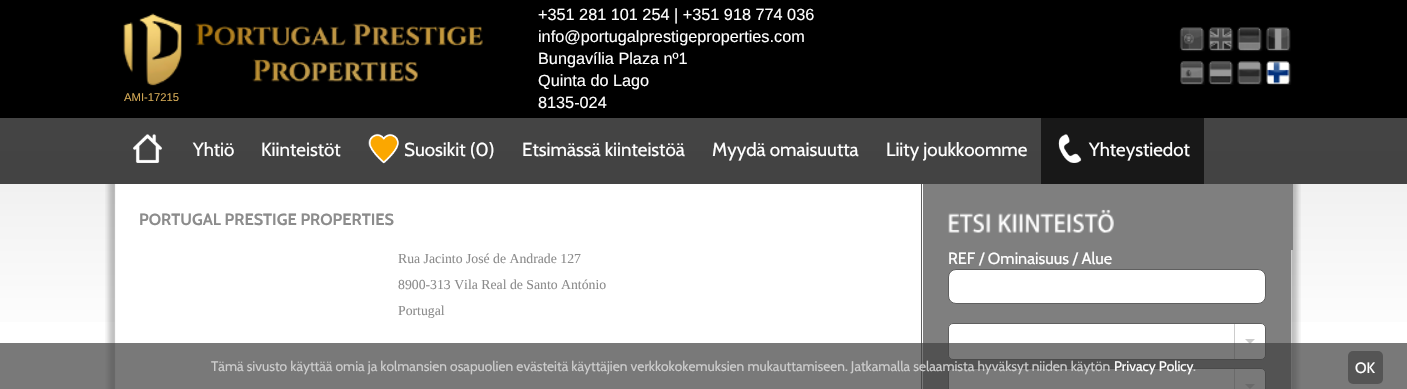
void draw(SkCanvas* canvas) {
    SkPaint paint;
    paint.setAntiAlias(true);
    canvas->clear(0xFFFFFFFF);
    paint.setColor(0xFF000000);
    canvas->drawRect(SkRect::MakeXYWH(0, 0, 1407, 118), paint);
    SkFont font1(fontMgr->matchFamilyStyle("Liberation Sans", SkFontStyle::Normal()), 16.25f);
    font1.setSubpixel(true);
    paint.setColor(0xFFFFFFFF);
    canvas->drawString("+351 281 101 254 | +351 918 774 036", 538, 20, font1, paint);
    canvas->drawString("info@portugalprestigeproperties.com", 538, 42, font1, paint);
    canvas->drawString("Bungavília Plaza nº1", 538, 64, font1, paint);
    canvas->drawString("Quinta do Lago", 538, 86, font1, paint);
    canvas->drawString("8135-024", 538, 108, font1, paint);
    canvas->drawImageRect(SkImages::DeferredFromEncodedData(SkData::MakeFromFileName("img1.png")), SkRect::MakeXYWH(1179, 27, 26, 25), SkSamplingOptions());
    canvas->drawImageRect(SkImages::DeferredFromEncodedData(SkData::MakeFromFileName("img2.png")), SkRect::MakeXYWH(1208, 27, 26, 25), SkSamplingOptions());
    canvas->drawImageRect(SkImages::DeferredFromEncodedData(SkData::MakeFromFileName("img3.png")), SkRect::MakeXYWH(1237, 27, 26, 25), SkSamplingOptions());
    canvas->drawImageRect(SkImages::DeferredFromEncodedData(SkData::MakeFromFileName("img4.png")), SkRect::MakeXYWH(1265, 27, 26, 25), SkSamplingOptions());
    canvas->drawImageRect(SkImages::DeferredFromEncodedData(SkData::MakeFromFileName("img5.png")), SkRect::MakeXYWH(1180, 61, 25, 24), SkSamplingOptions());
    canvas->drawImageRect(SkImages::DeferredFromEncodedData(SkData::MakeFromFileName("img6.png")), SkRect::MakeXYWH(1208, 61, 26, 24), SkSamplingOptions());
    canvas->drawImageRect(SkImages::DeferredFromEncodedData(SkData::MakeFromFileName("img7.png")), SkRect::MakeXYWH(1237, 61, 26, 24), SkSamplingOptions());
    canvas->drawImageRect(SkImages::DeferredFromEncodedData(SkData::MakeFromFileName("img8.png")), SkRect::MakeXYWH(1266, 61, 26, 24), SkSamplingOptions());
    canvas->drawImageRect(SkImages::DeferredFromEncodedData(SkData::MakeFromFileName("img9.png")), SkRect::MakeXYWH(123, 13, 360, 73), SkSamplingOptions());
    SkFont font2(fontMgr->matchFamilyStyle("Liberation Sans", SkFontStyle::Normal()), 11.25f);
    font2.setSubpixel(true);
    paint.setColor(0xFFD3A956);
    canvas->drawString("AMI-17215", 124, 101, font2, paint);
    {
        const SkColor colors[] = {0xFFEEEEEE, 0xFFFFFFFF};
        const float stops[] = {0, 1};
        const SkPoint ends[] = {{704, 151}, {704, 351}};
        paint.setShader(SkGradientShader::MakeLinear(ends, colors, stops, 2, SkTileMode::kClamp));
        paint.setAlpha(255);
    }
    canvas->drawRect(SkRect::MakeXYWH(0, 151, 1407, 171), paint);
    canvas->drawImageRect(SkImages::DeferredFromEncodedData(SkData::MakeFromFileName("img13.png")), SkRect::MakeXYWH(105, 183, 1196, 206), SkSamplingOptions());
    paint.setShader(nullptr);
    paint.setColor(0xE6303030);
    canvas->drawRect(SkRect::MakeXYWH(0, 118, 1407, 66), paint);
    canvas->drawImageRect(SkImages::DeferredFromEncodedData(SkData::MakeFromFileName("img10.png")), SkRect::MakeXYWH(133, 134, 29, 29), SkSamplingOptions());
    SkFont font3(fontMgr->matchFamilyStyle("Cabin", SkFontStyle::Normal()), 18.75f);
    font3.setSubpixel(true);
    paint.setColor(0xFFFFFFFF);
    canvas->drawString("Yhtiö", 193, 156, font3, paint);
    canvas->drawString("Kiinteistöt", 261, 156, font3, paint);
    canvas->drawImageRect(SkImages::DeferredFromEncodedData(SkData::MakeFromFileName("img11.png")), SkRect::MakeXYWH(368, 133, 31, 31), SkSamplingOptions());
    canvas->drawString("Suosikit (0)", 404, 156, font3, paint);
    canvas->drawString("Etsimässä kiinteistöä", 522, 156, font3, paint);
    canvas->drawString("Myydä omaisuutta", 712, 156, font3, paint);
    canvas->drawString("Liity joukkoomme", 886, 156, font3, paint);
    paint.setColor(0xFF181818);
    canvas->drawRect(SkRect::MakeXYWH(1041, 118, 163, 66), paint);
    canvas->drawImageRect(SkImages::DeferredFromEncodedData(SkData::MakeFromFileName("img12.png")), SkRect::MakeXYWH(1058, 134, 24, 29), SkSamplingOptions());
    paint.setColor(0xFFFFFFFF);
    canvas->drawString("Yhteystiedot", 1089, 156, font3, paint);
    paint.setColor(0xFF7F7F7F);
    canvas->drawRect(SkRect::MakeXYWH(1291, 184, 2, 66), paint);
    SkFont font4(fontMgr->matchFamilyStyle("Cabin", SkFontStyle::Bold()), 16.25f);
    font4.setSubpixel(true);
    paint.setColor(0xFF8C8C8C);
    canvas->drawString("PORTUGAL PRESTIGE PROPERTIES", 139, 225, font4, paint);
    SkFont font5(fontMgr->matchFamilyStyle("Liberation Serif", SkFontStyle::Normal()), 13.75f);
    font5.setSubpixel(true);
    canvas->drawString("Rua Jacinto José de Andrade 127", 398, 263, font5, paint);
    canvas->drawString("8900-313 Vila Real de Santo António", 398, 289, font5, paint);
    canvas->drawString("Portugal", 398, 315, font5, paint);
    paint.setColor(0xFF7F7F7F);
    canvas->drawRect(SkRect::MakeXYWH(923, 184, 368, 205), paint);
    paint.setColor(0xFF5F5F5F);
    canvas->drawPath(SkPathBuilder(SkPathFillType::kEvenOdd).moveTo(921, 184).lineTo(1291, 184).lineTo(1291, 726).lineTo(929, 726).cubicTo(925, 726, 921, 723, 921, 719).close().moveTo(922, 184).lineTo(1291, 184).lineTo(1291, 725).lineTo(929, 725).cubicTo(925, 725, 922, 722, 922, 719).close().detach(), paint);
    canvas->drawImageRect(SkImages::DeferredFromEncodedData(SkData::MakeFromFileName("img14.png")), SkRect::MakeXYWH(948, 213, 43, 20), SkSamplingOptions());
    canvas->drawImageRect(SkImages::DeferredFromEncodedData(SkData::MakeFromFileName("img15.png")), SkRect::MakeXYWH(998, 209, 116, 24), SkSamplingOptions());
    SkFont font6(fontMgr->matchFamilyStyle("Cabin", SkFontStyle::Normal()), 16.25f);
    font6.setSubpixel(true);
    paint.setColor(0xFFFFFFFF);
    canvas->drawString("REF / Ominaisuus / Alue", 948, 264, font6, paint);
    canvas->drawRoundRect(SkRect::MakeXYWH(948.5f, 269.5f, 317, 34), 7.5f, 7.5f, paint);
    paint.setStyle(SkPaint::kStroke_Style);
    paint.setStrokeWidth(1);
    paint.setColor(0xFF5F5F5F);
    canvas->drawRoundRect(SkRect::MakeXYWH(948.5f, 269.5f, 317, 34), 7.5f, 7.5f, paint);
    paint.setStyle(SkPaint::kFill_Style);
    paint.setColor(0xFFFFFFFF);
    canvas->drawRoundRect(SkRect::MakeXYWH(948.5f, 323.5f, 317, 36), 4.5f, 4.5f, paint);
    paint.setStyle(SkPaint::kStroke_Style);
    paint.setColor(0xFF5F5F5F);
    canvas->drawRoundRect(SkRect::MakeXYWH(948.5f, 323.5f, 317, 36), 4.5f, 4.5f, paint);
    paint.setStyle(SkPaint::kFill_Style);
    paint.setColor(0xFFCCCCCC);
    canvas->drawRect(SkRect::MakeXYWH(1234, 324, 1, 35), paint);
    canvas->drawPath(SkPathBuilder().moveTo(1245, 339).lineTo(1255, 339).lineTo(1250, 344).close().detach(), paint);
    paint.setColor(0xFFFFFFFF);
    canvas->drawRoundRect(SkRect::MakeXYWH(948.5f, 368.5f, 317, 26), 4.5f, 4.5f, paint);
    paint.setStyle(SkPaint::kStroke_Style);
    paint.setColor(0xFF5F5F5F);
    canvas->drawRoundRect(SkRect::MakeXYWH(948.5f, 368.5f, 317, 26), 4.5f, 4.5f, paint);
    paint.setStyle(SkPaint::kFill_Style);
    paint.setColor(0xFFCCCCCC);
    canvas->drawRect(SkRect::MakeXYWH(1234, 369, 1, 20), paint);
    canvas->drawPath(SkPathBuilder().moveTo(1245, 384).lineTo(1255, 384).lineTo(1250, 389).close().detach(), paint);
    paint.setColor(0xB3404040);
    canvas->drawRect(SkRect::MakeXYWH(0, 343, 1407, 46), paint);
    SkFont font7(fontMgr->matchFamilyStyle("Cabin", SkFontStyle::Normal()), 13.75f);
    font7.setSubpixel(true);
    paint.setColor(0xFFCCCCCC);
    canvas->drawString("Tämä sivusto käyttää omia ja kolmansien osapuolien evästeitä käyttäjien verkkokokemuksien mukauttamiseen. Jatkamalla selaamista hyväksyt niiden käytön", 211, 371, font7, paint);
    paint.setColor(0xFFFFFFFF);
    canvas->drawString("Privacy Policy", 1114, 371, font7, paint);
    paint.setColor(0xFFCCCCCC);
    canvas->drawString(".", 1193, 371, font7, paint);
    paint.setColor(0xFF555555);
    canvas->drawRoundRect(SkRect::MakeXYWH(1348, 351, 35, 33), 5, 5, paint);
    SkFont font8(fontMgr->matchFamilyStyle("Cabin", SkFontStyle::Normal()), 15);
    font8.setSubpixel(true);
    paint.setColor(0xFFFFFFFF);
    canvas->drawString("OK", 1355, 373, font8, paint);
}
